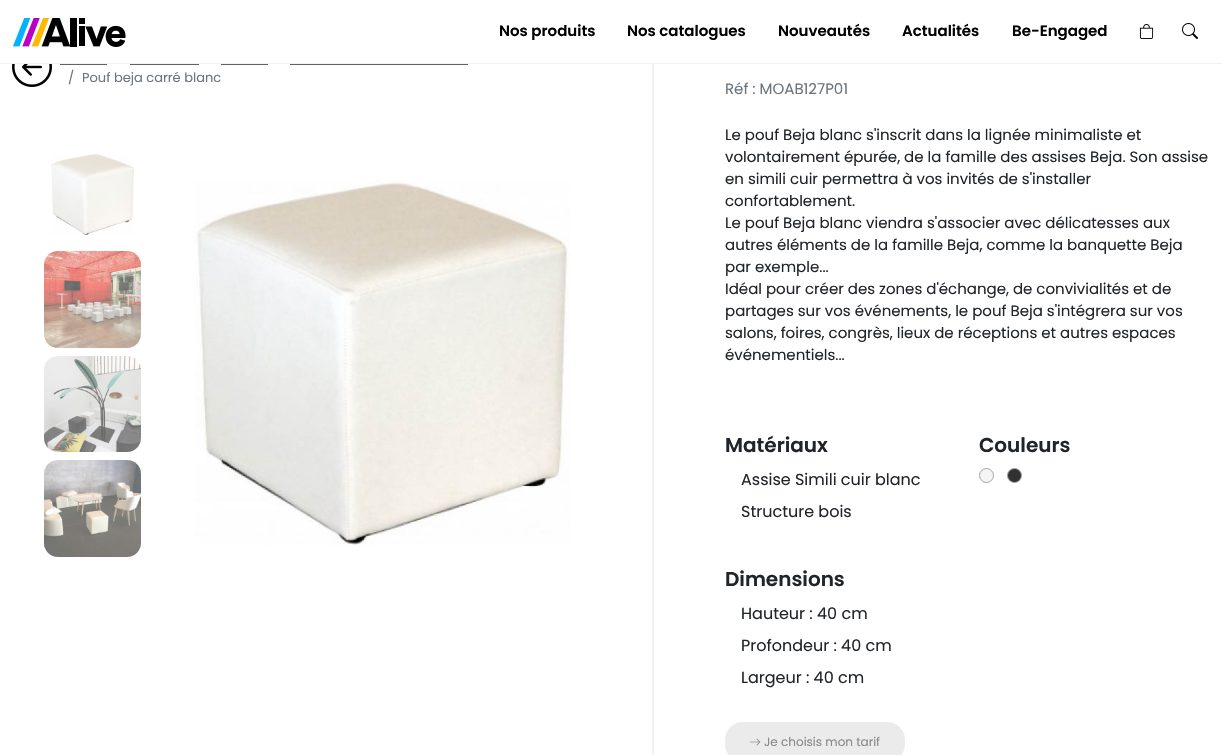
void draw(SkCanvas* canvas) {
    SkPaint paint;
    paint.setAntiAlias(true);
    canvas->clear(0xFFFFFFFF);
    paint.setColor(0xFFF1F1F1);
    canvas->drawRect(SkRect::MakeXYWH(0, 63, 1222, 1), paint);
    canvas->drawImageRect(SkImages::DeferredFromEncodedData(SkData::MakeFromFileName("img1.png")), SkRect::MakeXYWH(12, 18, 114, 29), SkSamplingOptions());
    SkFont font1(fontMgr->matchFamilyStyle("Poppins", SkFontStyle(600, SkFontStyle::kNormal_Width, SkFontStyle::kUpright_Slant)), 15);
    font1.setSubpixel(true);
    paint.setColor(0xFF000000);
    canvas->drawString("Nos produits", 499, 36, font1, paint);
    canvas->drawString("Nos catalogues", 627, 36, font1, paint);
    canvas->drawString("Nouveautés", 778, 36, font1, paint);
    canvas->drawString("Actualités", 902, 36, font1, paint);
    canvas->drawString("Be-Engaged", 1012, 36, font1, paint);
    canvas->drawImageRect(SkImages::DeferredFromEncodedData(SkData::MakeFromFileName("img2.png")), SkRect::MakeXYWH(1139, 24, 15, 15), SkSamplingOptions());
    canvas->drawImageRect(SkImages::DeferredFromEncodedData(SkData::MakeFromFileName("img3.png")), SkRect::MakeXYWH(1182, 23, 16, 16), SkSamplingOptions());
    canvas->drawImageRect(SkImages::DeferredFromEncodedData(SkData::MakeFromFileName("img4.png")), SkRect::MakeXYWH(12, 64, 40, 23), SkSamplingOptions());
    paint.setColor(0xFF626360);
    canvas->drawRect(SkRect::MakeXYWH(60, 64, 47, 1), paint);
    canvas->drawRect(SkRect::MakeXYWH(130, 64, 69, 1), paint);
    canvas->drawRect(SkRect::MakeXYWH(221, 64, 47, 1), paint);
    canvas->drawRect(SkRect::MakeXYWH(290, 64, 178, 1), paint);
    SkFont font2(fontMgr->matchFamilyStyle("Poppins", SkFontStyle::Normal()), 13);
    font2.setSubpixel(true);
    paint.setColor(0xFF6C757D);
    canvas->drawString("/", 68, 82, font2, paint);
    canvas->drawString("Pouf beja carré blanc", 82, 82, font2, paint);
    canvas->drawImageRect(SkImages::DeferredFromEncodedData(SkData::MakeFromFileName("img5.png")), SkRect::MakeXYWH(51, 154, 83, 82), SkSamplingOptions());
    canvas->drawImageRect(SkImages::DeferredFromEncodedData(SkData::MakeFromFileName("img6.png")), SkRect::MakeXYWH(44, 251, 97, 97), SkSamplingOptions());
    canvas->drawImageRect(SkImages::DeferredFromEncodedData(SkData::MakeFromFileName("img7.png")), SkRect::MakeXYWH(44, 356, 97, 96), SkSamplingOptions());
    canvas->drawImageRect(SkImages::DeferredFromEncodedData(SkData::MakeFromFileName("img8.png")), SkRect::MakeXYWH(44, 460, 97, 97), SkSamplingOptions());
    canvas->drawImageRect(SkImages::DeferredFromEncodedData(SkData::MakeFromFileName("img9.png")), SkRect::MakeXYWH(194, 181, 376, 364), SkSamplingOptions());
    paint.setColor(0xFFF1F1F1);
    canvas->drawRect(SkRect::MakeXYWH(652, 64, 2, 691), paint);
    SkFont font3(fontMgr->matchFamilyStyle("Poppins", SkFontStyle::Normal()), 15);
    font3.setSubpixel(true);
    paint.setColor(0xFF6C757D);
    canvas->drawString("Réf : MOAB127P01", 725, 94, font3, paint);
    paint.setColor(0xFF212529);
    canvas->drawString("Le pouf Beja blanc s'inscrit dans la lignée minimaliste et", 725, 140, font3, paint);
    canvas->drawString("volontairement épurée, de la famille des assises Beja. Son assise", 725, 162, font3, paint);
    canvas->drawString("en simili cuir permettra à vos invités de s'installer", 725, 184, font3, paint);
    canvas->drawString("confortablement.", 725, 206, font3, paint);
    canvas->drawString("Le pouf Beja blanc viendra s'associer avec délicatesses aux", 725, 228, font3, paint);
    canvas->drawString("autres éléments de la famille Beja, comme la banquette Beja", 725, 250, font3, paint);
    canvas->drawString("par exemple...", 725, 272, font3, paint);
    canvas->drawString("Idéal pour créer des zones d'échange, de convivialités et de", 725, 294, font3, paint);
    canvas->drawString("partages sur vos événements, le pouf Beja s'intégrera sur vos", 725, 316, font3, paint);
    canvas->drawString("salons, foires, congrès, lieux de réceptions et autres espaces", 725, 338, font3, paint);
    canvas->drawString("événementiels...", 725, 360, font3, paint);
    SkFont font4(fontMgr->matchFamilyStyle("Poppins", SkFontStyle(600, SkFontStyle::kNormal_Width, SkFontStyle::kUpright_Slant)), 20);
    font4.setSubpixel(true);
    canvas->drawString("Matériaux", 725, 452, font4, paint);
    SkFont font5(fontMgr->matchFamilyStyle("Poppins", SkFontStyle::Normal()), 16);
    font5.setSubpixel(true);
    canvas->drawString("Assise Simili cuir blanc", 741, 485, font5, paint);
    canvas->drawString("Structure bois", 741, 517, font5, paint);
    canvas->drawString("Couleurs", 979, 452, font4, paint);
    paint.setColor(0xFFF5F5F5);
    canvas->drawCircle(986.5f, 475.5f, 7, paint);
    paint.setStyle(SkPaint::kStroke_Style);
    paint.setStrokeWidth(1);
    paint.setColor(0xFFA1A4A3);
    canvas->drawCircle(986.5f, 475.5f, 7, paint);
    paint.setStyle(SkPaint::kFill_Style);
    paint.setColor(0xFF313132);
    canvas->drawCircle(1014.5f, 475.5f, 7, paint);
    paint.setStyle(SkPaint::kStroke_Style);
    paint.setColor(0xFFA1A4A3);
    canvas->drawCircle(1014.5f, 475.5f, 7, paint);
    paint.setStyle(SkPaint::kFill_Style);
    paint.setColor(0xFF212529);
    canvas->drawString("Dimensions", 725, 586, font4, paint);
    canvas->drawString("Hauteur : 40 cm", 741, 619, font5, paint);
    canvas->drawString("Profondeur : 40 cm", 741, 651, font5, paint);
    canvas->drawString("Largeur : 40 cm", 741, 683, font5, paint);
    paint.setColor(0xFFEBEBEB);
    canvas->drawRoundRect(SkRect::MakeXYWH(725, 722, 180, 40), 18, 18, paint);
    canvas->drawImageRect(SkImages::DeferredFromEncodedData(SkData::MakeFromFileName("img10.png")), SkRect::MakeXYWH(749, 738, 12, 8), SkSamplingOptions());
    SkFont font6(fontMgr->matchFamilyStyle("Poppins", SkFontStyle::Normal()), 12);
    font6.setSubpixel(true);
    paint.setColor(0xFF888888);
    canvas->drawString("Je choisis mon tarif", 764, 746, font6, paint);
}
